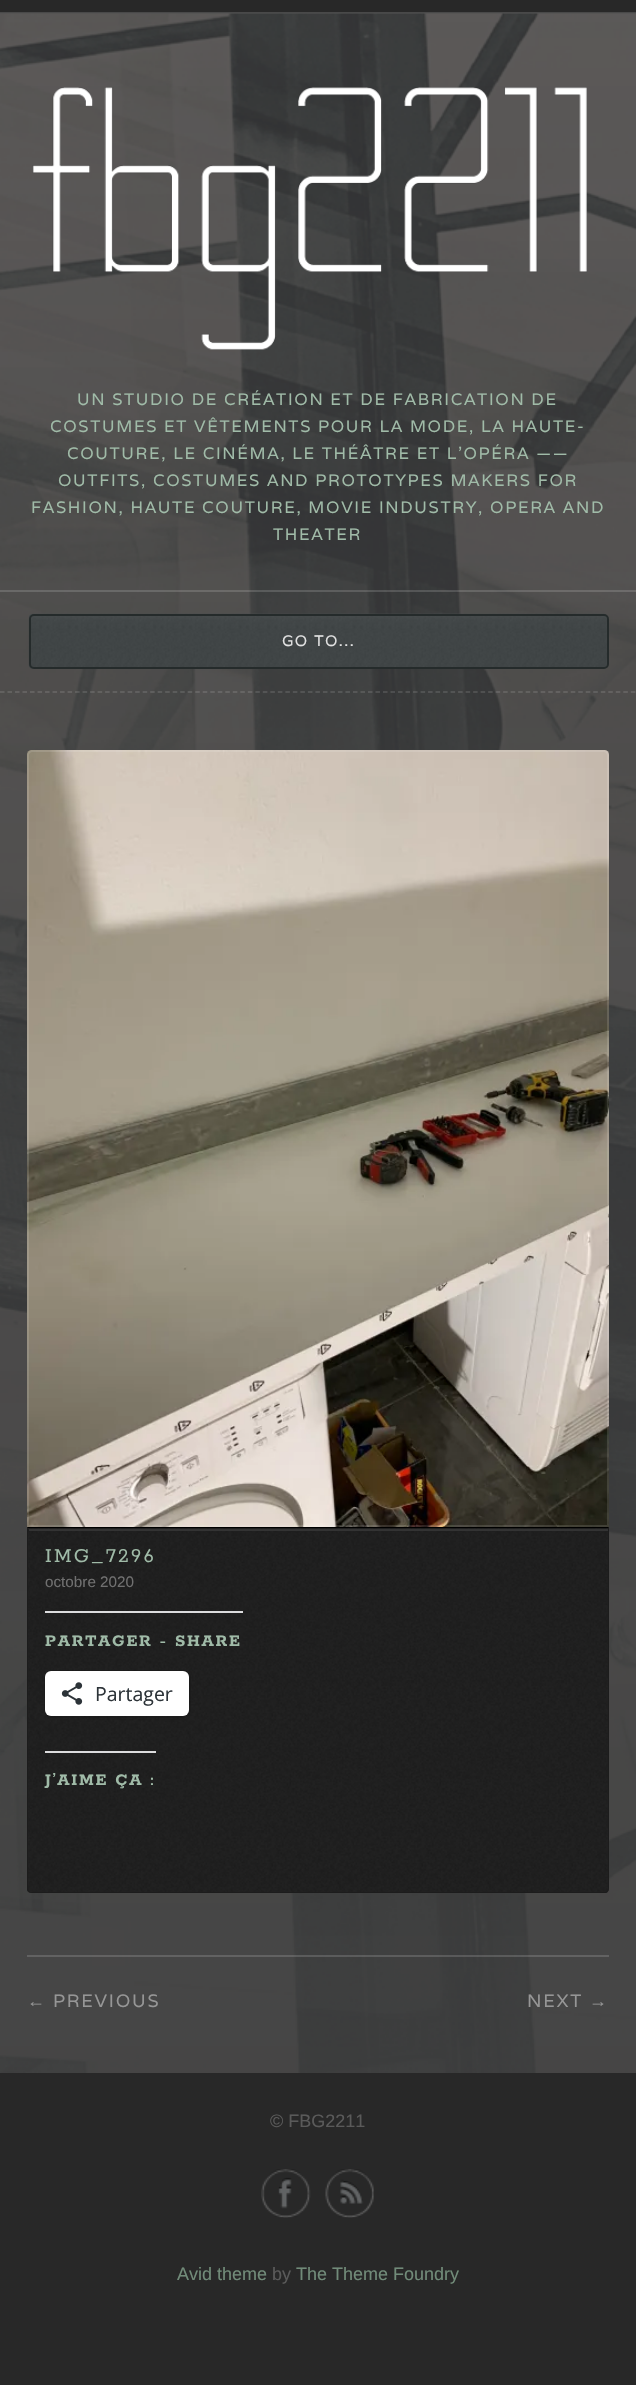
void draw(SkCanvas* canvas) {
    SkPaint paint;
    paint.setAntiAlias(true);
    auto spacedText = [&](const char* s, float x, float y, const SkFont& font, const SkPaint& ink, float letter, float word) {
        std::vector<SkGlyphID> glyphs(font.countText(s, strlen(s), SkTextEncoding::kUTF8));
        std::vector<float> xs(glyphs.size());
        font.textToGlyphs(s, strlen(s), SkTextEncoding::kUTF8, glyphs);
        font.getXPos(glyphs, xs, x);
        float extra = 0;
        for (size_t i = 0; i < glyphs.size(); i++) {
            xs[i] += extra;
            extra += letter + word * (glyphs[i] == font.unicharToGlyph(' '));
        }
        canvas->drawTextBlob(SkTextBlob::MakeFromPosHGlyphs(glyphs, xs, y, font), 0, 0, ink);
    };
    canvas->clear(0xFF282828);
    paint.setColor(0xFF3F3F3F);
    canvas->drawRect(SkRect::MakeXYWH(0, 12, 636, 2061), paint);
    canvas->drawImageRect(SkImages::DeferredFromEncodedData(SkData::MakeFromFileName("img1.png")), SkRect::MakeXYWH(0, 13, 636, 2060), SkSamplingOptions());
    paint.setColor(0x0DFFFFFF);
    canvas->drawRect(SkRect::MakeXYWH(0, 12, 636, 2), paint);
    canvas->drawImageRect(SkImages::DeferredFromEncodedData(SkData::MakeFromFileName("img2.png")), SkRect::MakeXYWH(32, 87, 555, 263), SkSamplingOptions());
    SkFont font1(fontMgr->matchFamilyStyle("Varela", SkFontStyle::Normal()), 16.6f);
    font1.setSubpixel(true);
    paint.setColor(0xFFA0BBA8);
    spacedText("UN STUDIO DE CRÉATION ET DE FABRICATION DE", 77, 405, font1, paint, 1.65f, 0);
    spacedText("COSTUMES ET VÊTEMENTS POUR LA MODE, LA HAUTE-", 50, 432, font1, paint, 1.65f, 0);
    spacedText("COUTURE, LE CINÉMA, LE THÉÂTRE ET L’OPÉRA ——", 67, 459, font1, paint, 1.65f, 0);
    spacedText("OUTFITS, COSTUMES AND PROTOTYPES MAKERS FOR", 58, 486, font1, paint, 1.65f, 0);
    spacedText("FASHION, HAUTE COUTURE, MOVIE INDUSTRY, OPERA AND", 31, 513, font1, paint, 1.65f, 0);
    spacedText("THEATER", 273, 540, font1, paint, 1.65f, 0);
    paint.setColor(0x26FFFFFF);
    canvas->drawRect(SkRect::MakeXYWH(0, 590, 636, 2), paint);
    paint.setStyle(SkPaint::kStroke_Style);
    paint.setStrokeWidth(1.5f);
    paint.setPathEffect(SkDashPathEffect::Make({{4.5f, 3.01f}}, 0));
    canvas->drawPath(SkPathBuilder().moveTo(0, 692).lineTo(636, 692).detach(), paint);
    paint.setPathEffect(nullptr);
    canvas->drawImageRect(SkImages::DeferredFromEncodedData(SkData::MakeFromFileName("img3.png")), SkRect::MakeXYWH(28, 613, 579, 56), SkSamplingOptions());
    paint.setStrokeWidth(2);
    paint.setColor(0xFF252B2B);
    canvas->drawRoundRect(SkRect::MakeXYWH(30, 615, 578, 53), 4, 4, paint);
    SkFont font2(fontMgr->matchFamilyStyle("Varela", SkFontStyle::Normal()), 15.25f);
    font2.setSubpixel(true);
    paint.setStyle(SkPaint::kFill_Style);
    paint.setColor(0xFFE2E2E2);
    spacedText("GO TO...", 282, 646, font2, paint, 1.5f, 0);
    canvas->drawImageRect(SkImages::DeferredFromEncodedData(SkData::MakeFromFileName("img4.png")), SkRect::MakeXYWH(27, 750, 582, 777), SkSamplingOptions());
    paint.setStyle(SkPaint::kStroke_Style);
    paint.setColor(0x1FFFFFFF);
    canvas->drawPath(SkPathBuilder().moveTo(32, 751).lineTo(604, 751).cubicTo(606, 751, 608, 753, 608, 755).lineTo(608, 1526).lineTo(28, 1526).lineTo(28, 755).cubicTo(28, 753, 30, 751, 32, 751).close().detach(), paint);
    canvas->drawImageRect(SkImages::DeferredFromEncodedData(SkData::MakeFromFileName("img5.png")), SkRect::MakeXYWH(27, 1527, 582, 366), SkSamplingOptions());
    paint.setStyle(SkPaint::kFill_Style);
    paint.setColor(0xFF000000);
    canvas->drawPath(SkPathBuilder().moveTo(27, 1527).lineTo(28, 1528).lineTo(608, 1528).lineTo(609, 1527).close().detach(), paint);
    paint.setColor(0xFF1C1C1C);
    canvas->drawPath(SkPathBuilder().moveTo(609, 1527).lineTo(608, 1528).lineTo(608, 1888).lineTo(607, 1891).lineTo(608, 1892).cubicTo(608, 1891, 609, 1890, 609, 1888).close().detach(), paint);
    canvas->drawPath(SkPathBuilder().moveTo(32, 1893).lineTo(606, 1893).lineTo(608, 1892).lineTo(607, 1891).cubicTo(606, 1892, 605, 1892, 604, 1892).lineTo(32, 1892).cubicTo(31, 1892, 30, 1892, 29, 1891).lineTo(28, 1892).cubicTo(29, 1892, 30, 1893, 32, 1893).close().detach(), paint);
    canvas->drawPath(SkPathBuilder().moveTo(28, 1528).lineTo(27, 1527).lineTo(27, 1890).lineTo(28, 1892).lineTo(29, 1891).lineTo(28, 1888).close().detach(), paint);
    paint.setColor(0xFF333333);
    canvas->drawRect(SkRect::MakeXYWH(29, 1529, 579, 2), paint);
    SkFont font3(fontMgr->matchFamilyStyle("Rokkitt", SkFontStyle::Normal()), 22);
    font3.setSubpixel(true);
    paint.setColor(0xFFA0BBA8);
    spacedText("IMG_7296", 45, 1562, font3, paint, 2.25f, 0);
    SkFont font4(fontMgr->matchFamilyStyle("Liberation Sans", SkFontStyle::Normal()), 15.25f);
    font4.setSubpixel(true);
    paint.setColor(0xFF707070);
    canvas->drawString("octobre 2020", 45, 1587, font4, paint);
    paint.setColor(0xFFDCDCDE);
    canvas->drawRect(SkRect::MakeXYWH(45, 1611, 198, 2), paint);
    SkFont font5(fontMgr->matchFamilyStyle("Rokkitt", SkFontStyle::Bold()), 18);
    font5.setSubpixel(true);
    paint.setColor(0xFFA0BBA8);
    spacedText("PARTAGER - SHARE", 45, 1646, font5, paint, 1.75f, 0);
    paint.setStyle(SkPaint::kStroke_Style);
    paint.setColor(0x1F000000);
    canvas->drawRoundRect(SkRect::MakeXYWH(45, 1671, 145, 46), 7, 7, paint);
    paint.setStyle(SkPaint::kFill_Style);
    paint.setColor(0xFFFFFFFF);
    canvas->drawRoundRect(SkRect::MakeXYWH(45, 1671, 144, 45), 6, 6, paint);
    canvas->drawImageRect(SkImages::DeferredFromEncodedData(SkData::MakeFromFileName("img6.png")), SkRect::MakeXYWH(61, 1682, 22, 23), SkSamplingOptions());
    SkFont font6(fontMgr->matchFamilyStyle("Open Sans", SkFontStyle::Normal()), 19.5f);
    font6.setSubpixel(true);
    paint.setColor(0xFF2C3338);
    canvas->drawString("Partager", 95, 1701, font6, paint);
    paint.setColor(0xFFDCDCDE);
    canvas->drawRect(SkRect::MakeXYWH(45, 1751, 111, 2), paint);
    paint.setColor(0xFFA0BBA8);
    spacedText("J’AIME ÇA :", 45, 1785, font5, paint, 1.75f, 0);
    paint.setColor(0x26FFFFFF);
    canvas->drawRect(SkRect::MakeXYWH(27, 1955, 582, 2), paint);
    SkFont font7(fontMgr->matchFamilyStyle("Liberation Sans", SkFontStyle::Normal()), 18);
    font7.setSubpixel(true);
    paint.setColor(0xFF969696);
    spacedText("←", 27, 2007, font7, paint, 1.75f, 0);
    SkFont font8(fontMgr->matchFamilyStyle("Varela", SkFontStyle::Normal()), 18);
    font8.setSubpixel(true);
    spacedText("PREVIOUS", 53, 2007, font8, paint, 1.75f, 0);
    spacedText("NEXT", 527, 2007, font8, paint, 1.75f, 0);
    spacedText("→", 589, 2007, font7, paint, 1.75f, 0);
    paint.setColor(0xFF5A5A5A);
    canvas->drawString("© FBG2211", 270, 2127, font7, paint);
    canvas->drawImageRect(SkImages::DeferredFromEncodedData(SkData::MakeFromFileName("img7.png")), SkRect::MakeXYWH(261, 2169, 50, 49), SkSamplingOptions());
    canvas->drawImageRect(SkImages::DeferredFromEncodedData(SkData::MakeFromFileName("img8.png")), SkRect::MakeXYWH(325, 2169, 49, 49), SkSamplingOptions());
    paint.setColor(0xFF718B79);
    canvas->drawString("Avid theme", 177, 2280, font7, paint);
    paint.setColor(0xFF5A5A5A);
    canvas->drawString("by", 272, 2280, font7, paint);
    paint.setColor(0xFF718B79);
    canvas->drawString("The Theme Foundry", 296, 2280, font7, paint);
}
